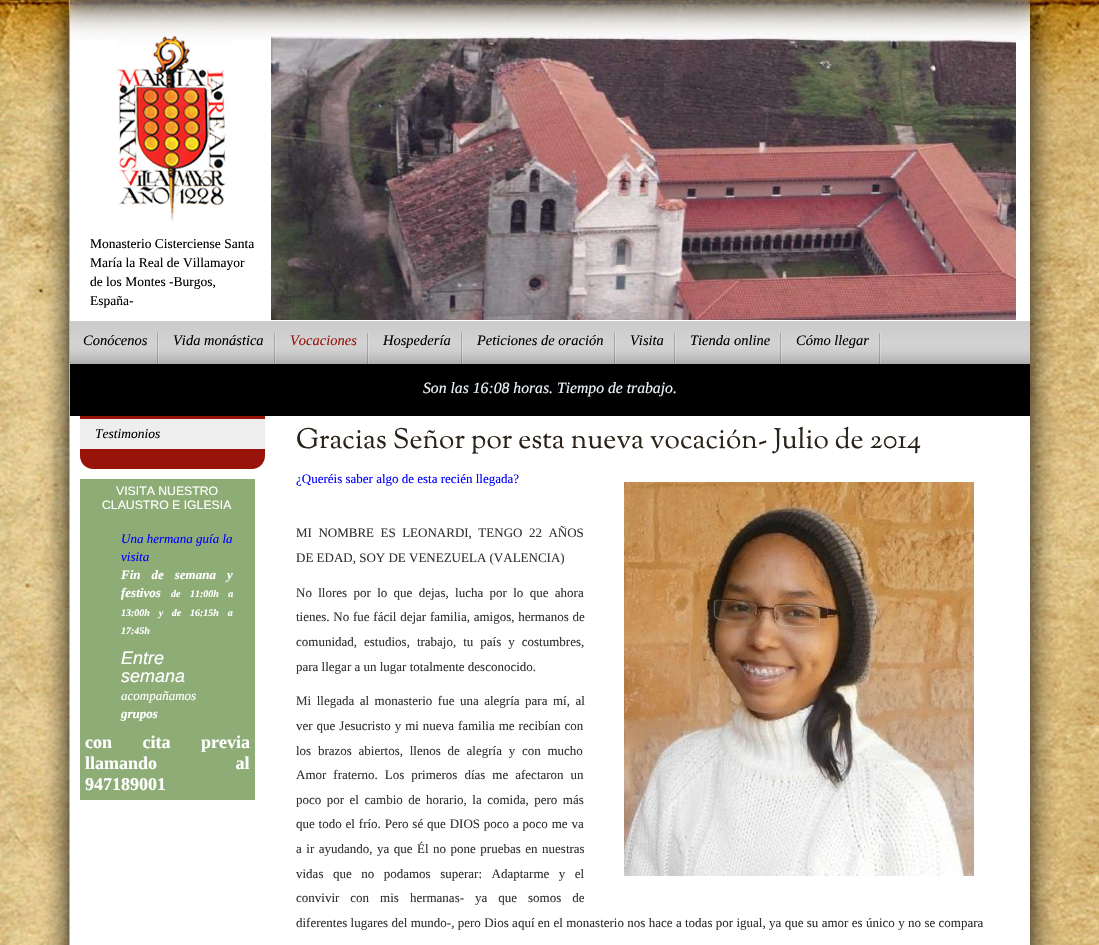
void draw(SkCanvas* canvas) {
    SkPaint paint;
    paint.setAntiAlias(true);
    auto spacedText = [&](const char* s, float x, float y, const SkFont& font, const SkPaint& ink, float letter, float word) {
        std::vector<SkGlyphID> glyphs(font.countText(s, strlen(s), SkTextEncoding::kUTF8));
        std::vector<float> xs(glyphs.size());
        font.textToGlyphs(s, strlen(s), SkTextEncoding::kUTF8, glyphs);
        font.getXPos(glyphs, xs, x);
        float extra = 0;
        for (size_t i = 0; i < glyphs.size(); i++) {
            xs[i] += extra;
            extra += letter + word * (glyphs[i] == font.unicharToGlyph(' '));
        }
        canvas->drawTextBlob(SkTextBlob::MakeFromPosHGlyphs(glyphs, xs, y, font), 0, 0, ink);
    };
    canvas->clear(0xFFFFFFFF);
    canvas->drawImageRect(SkImages::DeferredFromEncodedData(SkData::MakeFromFileName("img1.png")), SkRect::MakeXYWH(0, 0, 1099, 945), SkSamplingOptions());
    paint.setColor(0xFFFFFFFF);
    canvas->drawRect(SkRect::MakeXYWH(1029, 40, 1, 281), paint);
    canvas->drawImageRect(SkImages::DeferredFromEncodedData(SkData::MakeFromFileName("img2.png")), SkRect::MakeXYWH(70, 0, 960, 40), SkSamplingOptions());
    canvas->drawImageRect(SkImages::DeferredFromEncodedData(SkData::MakeFromFileName("img3.png")), SkRect::MakeXYWH(116, 36, 114, 186), SkSamplingOptions());
    SkFont font1(fontMgr->matchFamilyStyle("Liberation Serif", SkFontStyle::Normal()), 13.5f);
    font1.setSubpixel(true);
    paint.setColor(0xFF000000);
    canvas->drawString("Monasterio Cisterciense Santa", 90, 248, font1, paint);
    canvas->drawString("María la Real de Villamayor", 90, 267, font1, paint);
    canvas->drawString("de los Montes -Burgos,", 90, 286, font1, paint);
    canvas->drawString("España-", 90, 305, font1, paint);
    canvas->drawImageRect(SkImages::DeferredFromEncodedData(SkData::MakeFromFileName("img4.png")), SkRect::MakeXYWH(271, 36, 745, 284), SkSamplingOptions());
    canvas->drawImageRect(SkImages::DeferredFromEncodedData(SkData::MakeFromFileName("img5.png")), SkRect::MakeXYWH(70, 321, 960, 43), SkSamplingOptions());
    canvas->drawImageRect(SkImages::DeferredFromEncodedData(SkData::MakeFromFileName("img6.png")), SkRect::MakeXYWH(157, 333, 2, 31), SkSamplingOptions());
    SkFont font2(fontMgr->matchFamilyStyle("Liberation Serif", SkFontStyle::Italic()), 14.5f);
    font2.setSubpixel(true);
    canvas->drawString("Conócenos", 83, 345, font2, paint);
    canvas->drawImageRect(SkImages::DeferredFromEncodedData(SkData::MakeFromFileName("img6.png")), SkRect::MakeXYWH(274, 333, 2, 31), SkSamplingOptions());
    canvas->drawString("Vida monástica", 173, 345, font2, paint);
    canvas->drawImageRect(SkImages::DeferredFromEncodedData(SkData::MakeFromFileName("img6.png")), SkRect::MakeXYWH(367, 333, 2, 31), SkSamplingOptions());
    paint.setColor(0xFF98140B);
    canvas->drawString("Vocaciones", 290, 345, font2, paint);
    canvas->drawImageRect(SkImages::DeferredFromEncodedData(SkData::MakeFromFileName("img6.png")), SkRect::MakeXYWH(461, 333, 2, 31), SkSamplingOptions());
    paint.setColor(0xFF000000);
    canvas->drawString("Hospedería", 383, 345, font2, paint);
    canvas->drawImageRect(SkImages::DeferredFromEncodedData(SkData::MakeFromFileName("img6.png")), SkRect::MakeXYWH(614, 333, 2, 31), SkSamplingOptions());
    canvas->drawString("Peticiones de oración", 477, 345, font2, paint);
    canvas->drawImageRect(SkImages::DeferredFromEncodedData(SkData::MakeFromFileName("img6.png")), SkRect::MakeXYWH(674, 333, 2, 31), SkSamplingOptions());
    canvas->drawString("Visita", 630, 345, font2, paint);
    canvas->drawImageRect(SkImages::DeferredFromEncodedData(SkData::MakeFromFileName("img6.png")), SkRect::MakeXYWH(780, 333, 2, 31), SkSamplingOptions());
    canvas->drawString("Tienda online", 690, 345, font2, paint);
    canvas->drawImageRect(SkImages::DeferredFromEncodedData(SkData::MakeFromFileName("img6.png")), SkRect::MakeXYWH(879, 333, 2, 31), SkSamplingOptions());
    canvas->drawString("Cómo llegar", 796, 345, font2, paint);
    canvas->drawRect(SkRect::MakeXYWH(70, 364, 960, 52), paint);
    SkFont font3(fontMgr->matchFamilyStyle("Liberation Serif", SkFontStyle::Italic()), 15.7f);
    font3.setSubpixel(true);
    paint.setColor(0xFFEDF6FF);
    canvas->drawString("Son las 16:08 horas. Tiempo de trabajo.", 423, 393, font3, paint);
    paint.setColor(0xFFFFFFFF);
    canvas->drawRect(SkRect::MakeXYWH(1029, 416, 1, 529), paint);
    paint.setColor(0xFF98140B);
    canvas->drawPath(SkPathBuilder().moveTo(80, 416).lineTo(265, 416).lineTo(265, 456).cubicTo(265, 463, 259, 469, 252, 469).lineTo(93, 469).cubicTo(86, 469, 80, 463, 80, 456).close().detach(), paint);
    paint.setColor(0xFFEEEEEE);
    canvas->drawRect(SkRect::MakeXYWH(80, 419, 185, 30), paint);
    SkFont font4(fontMgr->matchFamilyStyle("Liberation Serif", SkFontStyle::Italic()), 13.5f);
    font4.setSubpixel(true);
    paint.setColor(0xFF000000);
    canvas->drawString("Testimonios", 95, 438, font4, paint);
    paint.setColor(0xFF8DAC76);
    canvas->drawRect(SkRect::MakeXYWH(80, 479, 175, 321), paint);
    SkFont font5(fontMgr->matchFamilyStyle("Liberation Sans", SkFontStyle::Normal()), 12.25f);
    font5.setSubpixel(true);
    paint.setColor(0xFFFFFFFF);
    canvas->drawString("VISITA NUESTRO", 116, 495, font5, paint);
    canvas->drawString("CLAUSTRO E IGLESIA", 102, 509, font5, paint);
    SkFont font6(fontMgr->matchFamilyStyle("Liberation Serif", SkFontStyle::Italic()), 13);
    font6.setSubpixel(true);
    paint.setColor(0xFF0000FF);
    canvas->drawString("Una hermana guía la", 121, 543, font6, paint);
    canvas->drawString("visita", 121, 561, font6, paint);
    SkFont font7(fontMgr->matchFamilyStyle("Liberation Serif", SkFontStyle::BoldItalic()), 13);
    font7.setSubpixel(true);
    paint.setColor(0xFFFFFFFF);
    spacedText("Fin de semana y", 121, 579, font7, paint, 0, 7.75f);
    canvas->drawString("festivos", 121, 597, font7, paint);
    SkFont font8(fontMgr->matchFamilyStyle("Liberation Serif", SkFontStyle::BoldItalic()), 10);
    font8.setSubpixel(true);
    spacedText("de 11:00h a", 171, 597, font8, paint, 0, 7);
    spacedText("13:00h y de 16:15h a", 121, 616, font8, paint, 0, 6.25f);
    canvas->drawString("17:45h", 121, 634, font8, paint);
    SkFont font9(fontMgr->matchFamilyStyle("Liberation Sans", SkFontStyle::Italic()), 18);
    font9.setSubpixel(true);
    canvas->drawString("Entre", 121, 664, font9, paint);
    canvas->drawString("semana", 121, 682, font9, paint);
    canvas->drawString("acompañamos", 121, 700, font6, paint);
    canvas->drawString("grupos", 121, 718, font7, paint);
    SkFont font10(fontMgr->matchFamilyStyle("Liberation Serif", SkFontStyle::Bold()), 18);
    font10.setSubpixel(true);
    spacedText("con cita previa", 85, 748, font10, paint, 0, 26);
    spacedText("llamando al", 85, 769, font10, paint, 0, 74);
    canvas->drawString("947189001", 85, 790, font10, paint);
    SkFont font11(fontMgr->matchFamilyStyle("OFL Sorts Mill Goudy TT", SkFontStyle(500, SkFontStyle::kNormal_Width, SkFontStyle::kUpright_Slant)), 28);
    font11.setSubpixel(true);
    paint.setColor(0xFF2A231A);
    canvas->drawString("Gracias Señor por esta nueva vocación- Julio de 2014", 296, 448, font11, paint);
    SkFont font12(fontMgr->matchFamilyStyle("Liberation Serif", SkFontStyle::Normal()), 13);
    font12.setSubpixel(true);
    paint.setColor(0xFF0000FF);
    canvas->drawString("¿Queréis saber algo de esta recién llegada?", 296, 483, font12, paint);
    paint.setColor(0xFF333333);
    spacedText("MI NOMBRE ES LEONARDI, TENGO 22 AÑOS", 296, 537, font12, paint, 0, 3.25f);
    canvas->drawString("DE EDAD, SOY DE VENEZUELA (VALENCIA)", 296, 562, font12, paint);
    canvas->drawImageRect(SkImages::DeferredFromEncodedData(SkData::MakeFromFileName("img7.png")), SkRect::MakeXYWH(624, 482, 350, 394), SkSamplingOptions());
    spacedText("No llores por lo que dejas, lucha por lo que ahora", 296, 597, font12, paint, 0, 3.1f);
    spacedText("tienes. No fue fácil dejar familia, amigos, hermanos de", 296, 621, font12, paint, 0, 0.5f);
    spacedText("comunidad, estudios, trabajo, tu país y costumbres,", 296, 646, font12, paint, 0, 3.75f);
    canvas->drawString("para llegar a un lugar totalmente desconocido.", 296, 671, font12, paint);
    spacedText("Mi llegada al monasterio fue una alegría para mí, al", 296, 705, font12, paint, 0, 2.25f);
    spacedText("ver que Jesucristo y mi nueva familia me recibían con", 296, 730, font12, paint, 0, 0.75f);
    spacedText("los brazos abiertos, llenos de alegría y con mucho", 296, 755, font12, paint, 0, 3.5f);
    spacedText("Amor fraterno. Los primeros días me afectaron un", 296, 779, font12, paint, 0, 3.75f);
    spacedText("poco por el cambio de horario, la comida, pero más", 296, 804, font12, paint, 0, 2.25f);
    spacedText("que todo el frío. Pero sé que DIOS poco a poco me va", 296, 828, font12, paint, 0, 0.6f);
    spacedText("a ir ayudando, ya que Él no pone pruebas en nuestras", 296, 853, font12, paint, 0, 1.25f);
    spacedText("vidas que no podamos superar: Adaptarme y el", 296, 878, font12, paint, 0, 6.25f);
    spacedText("convivir con mis hermanas- ya que somos de", 296, 902, font12, paint, 0, 7.75f);
    spacedText("diferentes lugares del mundo-, pero Dios aquí en el monasterio nos hace a todas por igual, ya que su amor es único y no se compara", 296, 927, font12, paint, 0, 0.1f);
}
